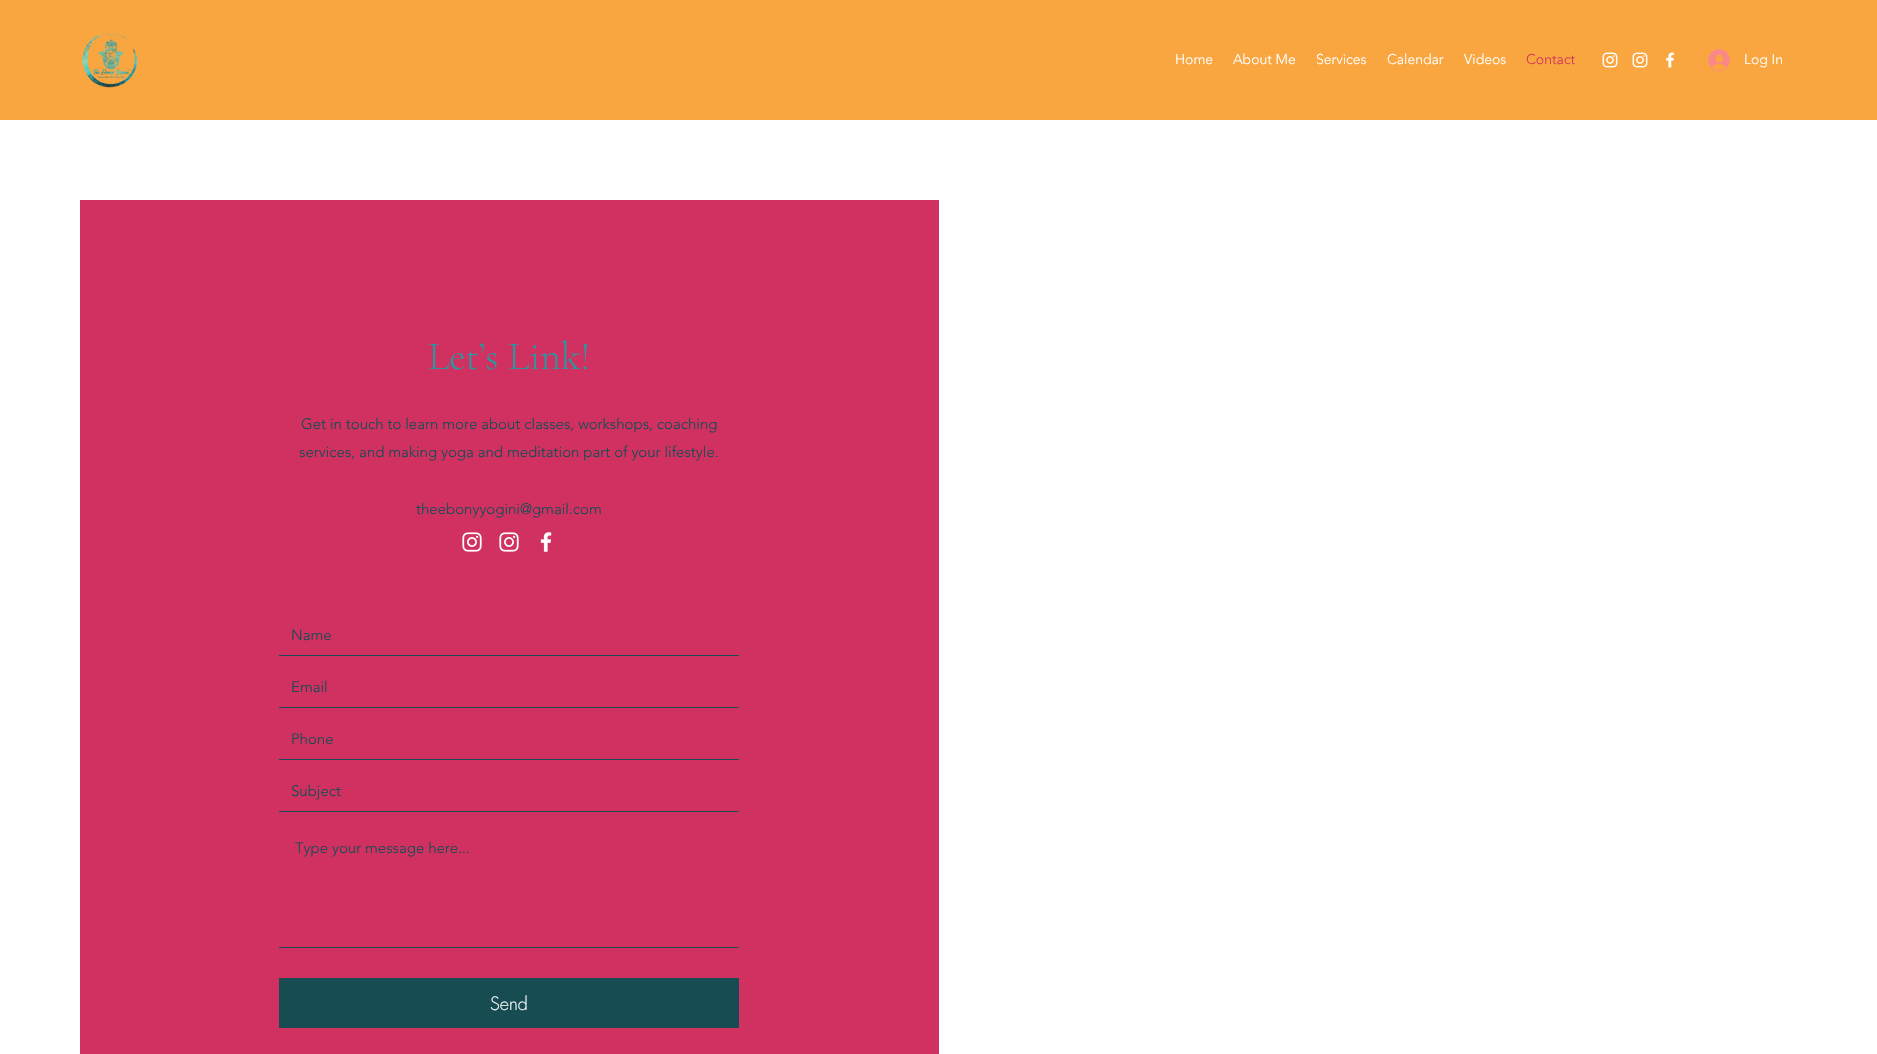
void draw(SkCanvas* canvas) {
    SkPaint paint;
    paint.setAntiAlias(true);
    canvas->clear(0xFFFFFFFF);
    paint.setColor(0xFFF9A640);
    canvas->drawRect(SkRect::MakeXYWH(0, 0, 1877, 120), paint);
    canvas->drawImageRect(SkImages::DeferredFromEncodedData(SkData::MakeFromFileName("img1.png")), SkRect::MakeXYWH(82, 33, 56, 55), SkSamplingOptions());
    SkFont font1(fontMgr->matchFamilyStyle("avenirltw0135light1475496", SkFontStyle(300, SkFontStyle::kNormal_Width, SkFontStyle::kUpright_Slant)), 14);
    font1.setSubpixel(true);
    paint.setColor(0xFFFFFFFF);
    canvas->drawString("Home", 1175, 64, font1, paint);
    canvas->drawString("About Me", 1233, 64, font1, paint);
    canvas->drawString("Services", 1316, 64, font1, paint);
    canvas->drawString("Calendar", 1387, 64, font1, paint);
    canvas->drawString("Videos", 1464, 64, font1, paint);
    paint.setColor(0xFFD03161);
    canvas->drawString("Contact", 1526, 64, font1, paint);
    canvas->drawImageRect(SkImages::DeferredFromEncodedData(SkData::MakeFromFileName("img2.png")), SkRect::MakeXYWH(1602, 52, 16, 16), SkSamplingOptions());
    canvas->drawImageRect(SkImages::DeferredFromEncodedData(SkData::MakeFromFileName("img2.png")), SkRect::MakeXYWH(1632, 52, 16, 16), SkSamplingOptions());
    canvas->drawImageRect(SkImages::DeferredFromEncodedData(SkData::MakeFromFileName("img3.png")), SkRect::MakeXYWH(1666, 52, 9, 16), SkSamplingOptions());
    canvas->drawImageRect(SkImages::DeferredFromEncodedData(SkData::MakeFromFileName("img4.png")), SkRect::MakeXYWH(1708, 49, 22, 22), SkSamplingOptions());
    paint.setColor(0xFFFFFFFF);
    canvas->drawString("Log In", 1744, 64, font1, paint);
    paint.setColor(0xFFD03161);
    canvas->drawRect(SkRect::MakeXYWH(80, 200, 859, 854), paint);
    SkFont font2(fontMgr->matchFamilyStyle("Cormorant Garamond", SkFontStyle(300, SkFontStyle::kNormal_Width, SkFontStyle::kUpright_Slant)), 40);
    font2.setSubpixel(true);
    paint.setColor(0xFF2698A1);
    canvas->drawString("Let’s Link!", 428, 369, font2, paint);
    SkFont font3(fontMgr->matchFamilyStyle("avenirltw0135light1475496", SkFontStyle(300, SkFontStyle::kNormal_Width, SkFontStyle::kUpright_Slant)), 15);
    font3.setSubpixel(true);
    paint.setColor(0xFF174C53);
    canvas->drawString("Get in touch to learn more about classes, workshops, coaching", 301, 429, font3, paint);
    canvas->drawString("services, and making yoga and meditation part of your lifestyle.", 299, 457, font3, paint);
    canvas->drawString("theebonyyogini@gmail.com", 416, 514, font3, paint);
    canvas->drawImageRect(SkImages::DeferredFromEncodedData(SkData::MakeFromFileName("img5.png")), SkRect::MakeXYWH(462, 532, 20, 20), SkSamplingOptions());
    canvas->drawImageRect(SkImages::DeferredFromEncodedData(SkData::MakeFromFileName("img5.png")), SkRect::MakeXYWH(499, 532, 20, 20), SkSamplingOptions());
    canvas->drawImageRect(SkImages::DeferredFromEncodedData(SkData::MakeFromFileName("img6.png")), SkRect::MakeXYWH(540, 532, 12, 20), SkSamplingOptions());
    canvas->drawRect(SkRect::MakeXYWH(279, 655, 460, 1), paint);
    canvas->drawString("Name", 291, 640, font3, paint);
    canvas->drawRect(SkRect::MakeXYWH(279, 707, 460, 1), paint);
    canvas->drawString("Email", 291, 692, font3, paint);
    canvas->drawRect(SkRect::MakeXYWH(279, 759, 460, 1), paint);
    canvas->drawString("Phone", 291, 744, font3, paint);
    canvas->drawRect(SkRect::MakeXYWH(279, 811, 460, 1), paint);
    canvas->drawString("Subject", 291, 796, font3, paint);
    canvas->drawRect(SkRect::MakeXYWH(279, 947, 460, 1), paint);
    canvas->drawString("Type your message here...", 295, 853, font3, paint);
    canvas->drawRect(SkRect::MakeXYWH(279, 978, 460, 50), paint);
    SkFont font4(fontMgr->matchFamilyStyle("futura", SkFontStyle(300, SkFontStyle::kNormal_Width, SkFontStyle::kUpright_Slant)), 18);
    font4.setSubpixel(true);
    paint.setColor(0xFFFFFFFF);
    canvas->drawString("Send", 490, 1010, font4, paint);
}
